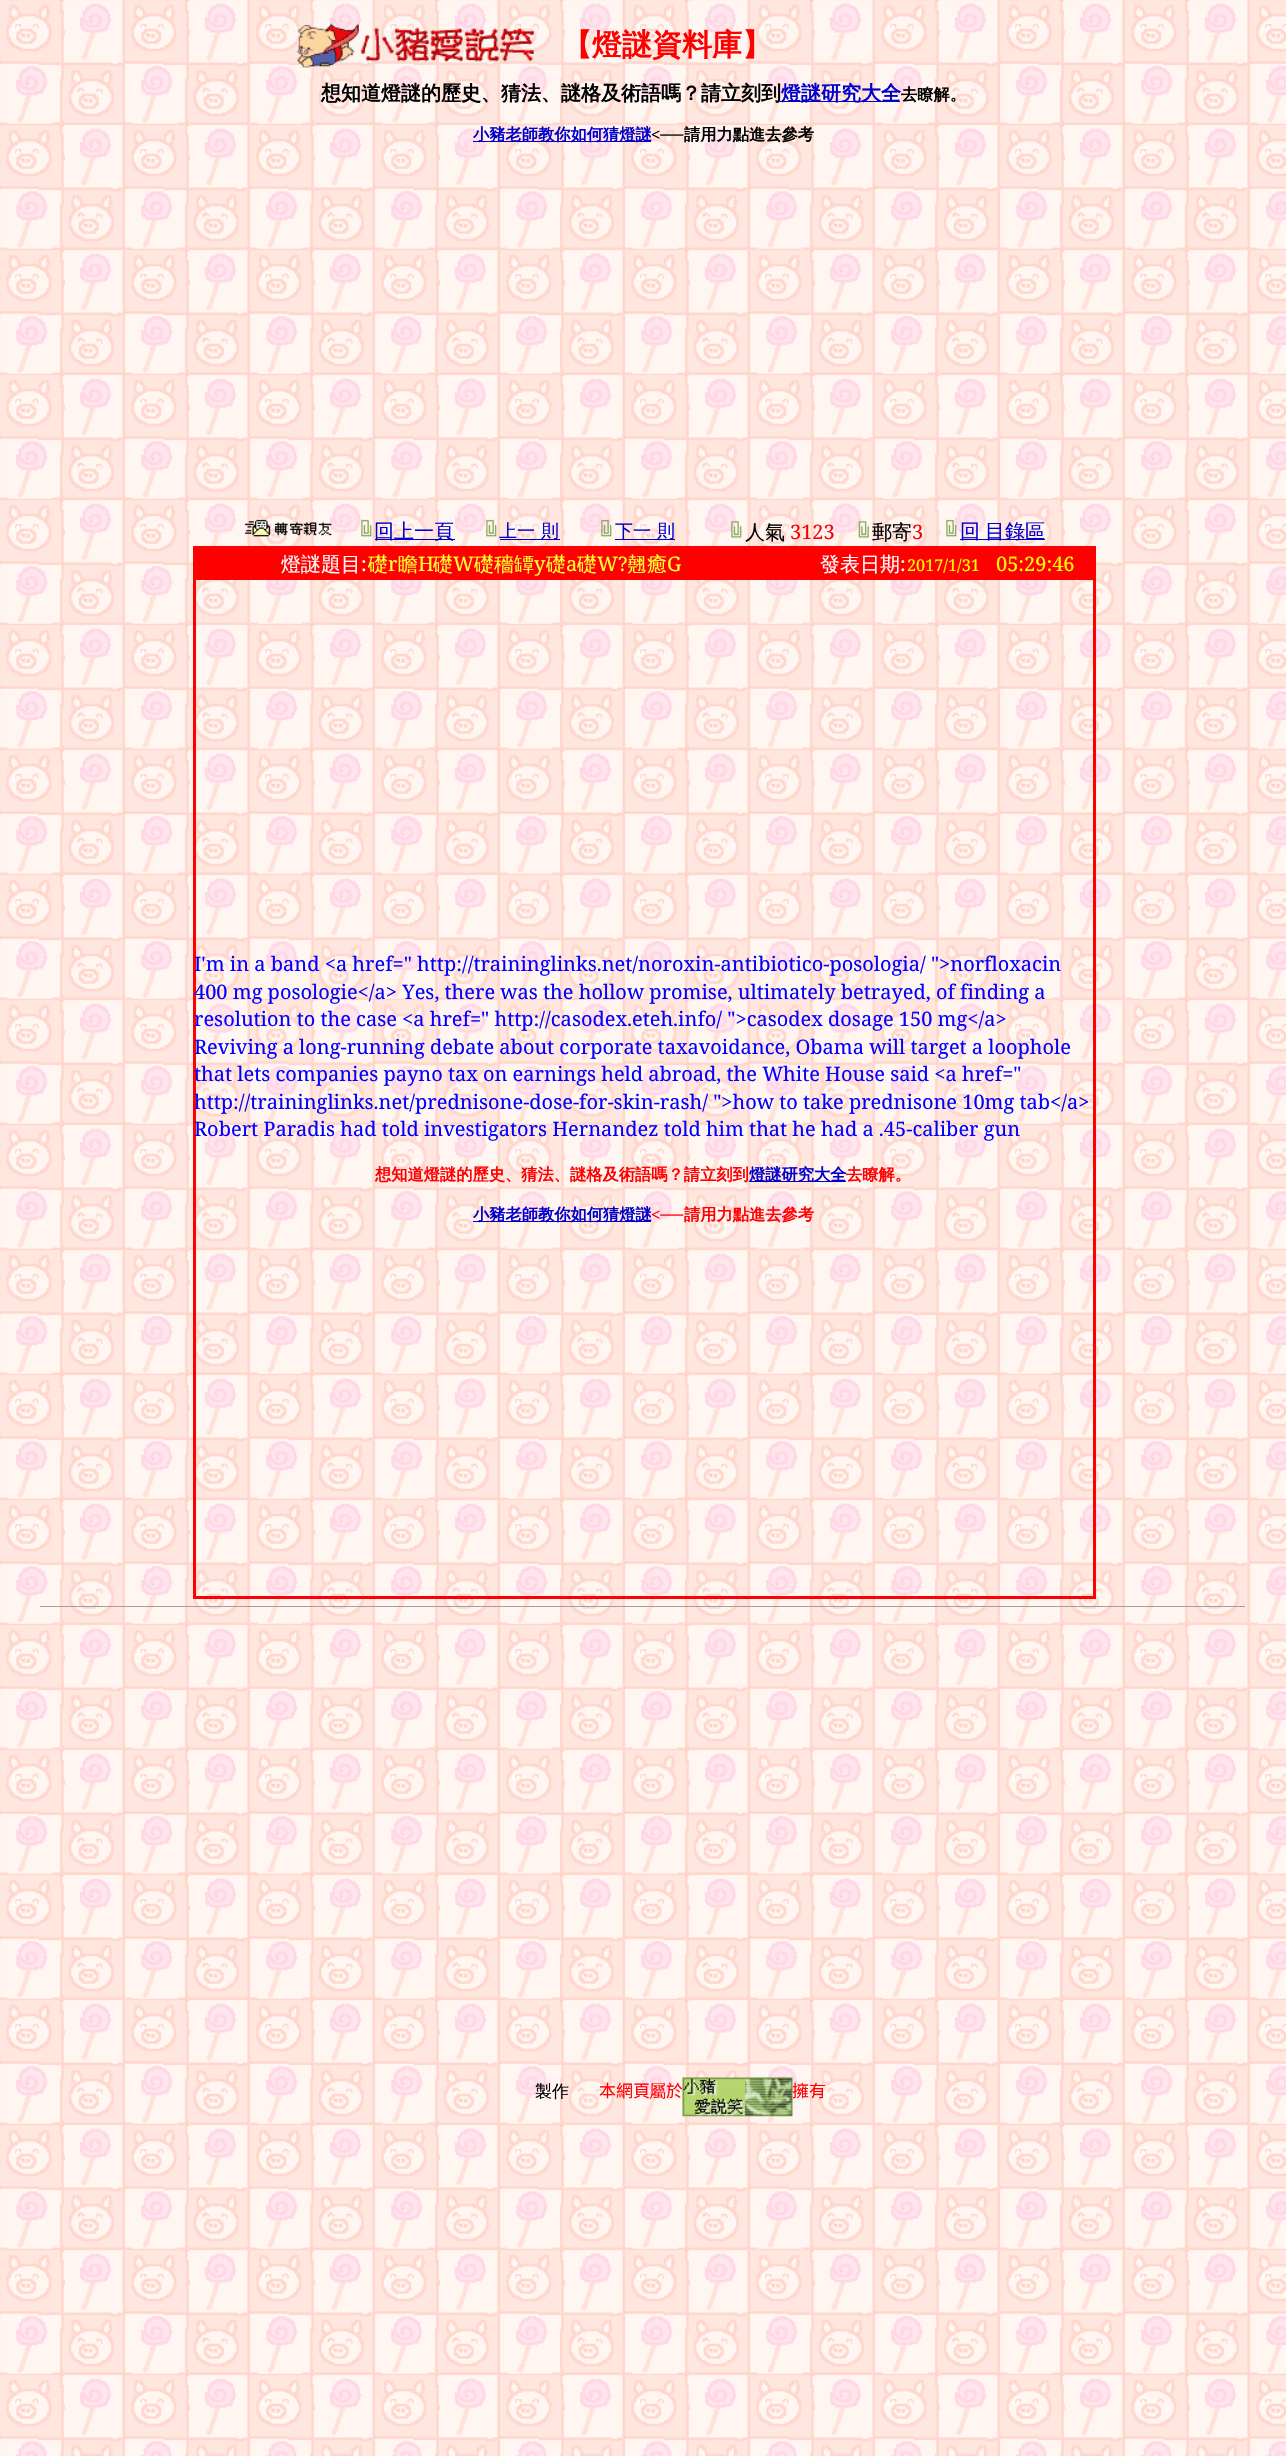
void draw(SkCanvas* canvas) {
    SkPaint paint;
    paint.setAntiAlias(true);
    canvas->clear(0xFFFFFFFF);
    canvas->drawImageRect(SkImages::DeferredFromEncodedData(SkData::MakeFromFileName("img1.png")), SkRect::MakeXYWH(0, 0, 1286, 2456), SkSamplingOptions());
    canvas->drawImageRect(SkImages::DeferredFromEncodedData(SkData::MakeFromFileName("img2.png")), SkRect::MakeXYWH(297, 23, 238, 45), SkSamplingOptions());
    SkFont font1(fontMgr->matchFamilyStyle("WenQuanYi Zen Hei", SkFontStyle::Bold()), 30);
    font1.setSubpixel(true);
    paint.setColor(0xFFFF0000);
    canvas->drawString("【燈謎資料庫】", 562, 55, font1, paint);
    SkFont font2(fontMgr->matchFamilyStyle("WenQuanYi Zen Hei", SkFontStyle::Bold()), 20);
    font2.setSubpixel(true);
    paint.setColor(0xFF000000);
    canvas->drawString("想知道燈謎的歷史、猜法、謎格及術語嗎？請立刻到", 321, 100, font2, paint);
    paint.setColor(0xFF0000CC);
    canvas->drawRect(SkRect::MakeXYWH(780, 101, 120, 1), paint);
    canvas->drawString("燈謎研究大全", 781, 100, font2, paint);
    SkFont font3(fontMgr->matchFamilyStyle("WenQuanYi Zen Hei", SkFontStyle::Bold()), 16.25f);
    font3.setSubpixel(true);
    paint.setColor(0xFF000000);
    canvas->drawString("去瞭解。", 901, 100, font3, paint);
    paint.setColor(0xFF0000CC);
    canvas->drawRect(SkRect::MakeXYWH(473, 141, 178, 1), paint);
    canvas->drawString("小豬老師教你如何猜燈謎", 473, 140, font3, paint);
    SkFont font4(fontMgr->matchFamilyStyle("Liberation Serif", SkFontStyle::Bold()), 16.25f);
    font4.setSubpixel(true);
    paint.setColor(0xFF000000);
    canvas->drawString("<──", 651, 140, font4, paint);
    canvas->drawString("請用力點進去參考", 684, 140, font3, paint);
    canvas->drawImageRect(SkImages::DeferredFromEncodedData(SkData::MakeFromFileName("img3.png")), SkRect::MakeXYWH(244, 519, 88, 18), SkSamplingOptions());
    canvas->drawImageRect(SkImages::DeferredFromEncodedData(SkData::MakeFromFileName("img4.png")), SkRect::MakeXYWH(361, 519, 11, 18), SkSamplingOptions());
    paint.setColor(0xFF0000CC);
    canvas->drawRect(SkRect::MakeXYWH(375, 539, 80, 1), paint);
    SkFont font5(fontMgr->matchFamilyStyle("WenQuanYi Zen Hei", SkFontStyle(500, SkFontStyle::kNormal_Width, SkFontStyle::kUpright_Slant)), 20);
    font5.setSubpixel(true);
    canvas->drawString("回上一頁", 374, 538, font5, paint);
    canvas->drawImageRect(SkImages::DeferredFromEncodedData(SkData::MakeFromFileName("img4.png")), SkRect::MakeXYWH(486, 519, 11, 18), SkSamplingOptions());
    SkFont font6(fontMgr->matchFamilyStyle("WenQuanYi Zen Hei", SkFontStyle(500, SkFontStyle::kNormal_Width, SkFontStyle::kUpright_Slant)), 18);
    font6.setSubpixel(true);
    canvas->drawString("上一", 499, 537, font6, paint);
    canvas->drawRect(SkRect::MakeXYWH(500, 539, 60, 1), paint);
    canvas->drawString("則", 541, 537, font6, paint);
    canvas->drawImageRect(SkImages::DeferredFromEncodedData(SkData::MakeFromFileName("img5.png")), SkRect::MakeXYWH(601, 519, 11, 18), SkSamplingOptions());
    canvas->drawRect(SkRect::MakeXYWH(615, 539, 60, 1), paint);
    canvas->drawString("下一", 615, 537, font6, paint);
    canvas->drawString("則", 657, 537, font6, paint);
    canvas->drawImageRect(SkImages::DeferredFromEncodedData(SkData::MakeFromFileName("img6.png")), SkRect::MakeXYWH(731, 521, 11, 17), SkSamplingOptions());
    paint.setColor(0xFF000000);
    canvas->drawString("人氣", 745, 539, font5, paint);
    SkFont font7(fontMgr->matchFamilyStyle("Noto Serif", SkFontStyle::Normal()), 20);
    font7.setSubpixel(true);
    paint.setColor(0xFFFF0000);
    canvas->drawString("3123", 790, 539, font7, paint);
    canvas->drawImageRect(SkImages::DeferredFromEncodedData(SkData::MakeFromFileName("img7.png")), SkRect::MakeXYWH(858, 521, 11, 17), SkSamplingOptions());
    paint.setColor(0xFF000000);
    canvas->drawString("郵寄", 872, 539, font5, paint);
    paint.setColor(0xFFFF0000);
    canvas->drawString("3", 912, 539, font7, paint);
    canvas->drawImageRect(SkImages::DeferredFromEncodedData(SkData::MakeFromFileName("img8.png")), SkRect::MakeXYWH(946, 519, 11, 18), SkSamplingOptions());
    paint.setColor(0xFF0000CC);
    canvas->drawRect(SkRect::MakeXYWH(960, 539, 85, 1), paint);
    canvas->drawString("回", 960, 538, font5, paint);
    canvas->drawString("目錄區", 985, 538, font5, paint);
    paint.setColor(0xFFFF0000);
    canvas->drawRect(SkRect::MakeXYWH(193, 546, 902, 3), paint);
    canvas->drawRect(SkRect::MakeXYWH(193, 579, 901, 1), paint);
    canvas->drawRect(SkRect::MakeXYWH(1093, 546, 3, 1053), paint);
    canvas->drawRect(SkRect::MakeXYWH(193, 1596, 902, 3), paint);
    canvas->drawRect(SkRect::MakeXYWH(193, 546, 3, 1053), paint);
    canvas->drawRect(SkRect::MakeXYWH(196, 549, 897, 30), paint);
    paint.setColor(0xFFFFFFFF);
    canvas->drawString("燈謎題目", 281, 571, font5, paint);
    canvas->drawString(":", 361, 571, font7, paint);
    paint.setColor(0xFFFFFF33);
    canvas->drawString("礎", 368, 571, font5, paint);
    canvas->drawString("r", 388, 571, font7, paint);
    canvas->drawString("瞻", 398, 571, font5, paint);
    canvas->drawString("H", 418, 571, font7, paint);
    canvas->drawString("礎", 433, 571, font5, paint);
    canvas->drawString("W", 453, 571, font7, paint);
    canvas->drawString("礎穡罈", 474, 571, font5, paint);
    canvas->drawString("y", 534, 571, font7, paint);
    canvas->drawString("礎", 546, 571, font5, paint);
    canvas->drawString("a", 566, 571, font7, paint);
    canvas->drawString("礎", 577, 571, font5, paint);
    canvas->drawString("W?", 597, 571, font7, paint);
    canvas->drawString("翹癒", 627, 571, font5, paint);
    canvas->drawString("G", 667, 571, font7, paint);
    paint.setColor(0xFFFFFFFF);
    canvas->drawString("發表日期", 820, 571, font5, paint);
    canvas->drawString(":", 900, 571, font7, paint);
    SkFont font8(fontMgr->matchFamilyStyle("Noto Serif", SkFontStyle::Normal()), 16.25f);
    font8.setSubpixel(true);
    paint.setColor(0xFFFFFF00);
    canvas->drawString("2017/1/31", 907, 571, font8, paint);
    canvas->drawString("05:29:46", 996, 571, font7, paint);
    paint.setColor(0xFF0000FF);
    canvas->drawString("I'm in a band <a href=\" http://traininglinks.net/noroxin-antibiotico-posologia/ \">norfloxacin", 194, 971, font7, paint);
    canvas->drawString("400 mg posologie</a> Yes, there was the hollow promise, ultimately betrayed, of finding a", 194, 999, font7, paint);
    canvas->drawString("resolution to the case <a href=\" http://casodex.eteh.info/ \">casodex dosage 150 mg</a>", 194, 1026, font7, paint);
    canvas->drawString("Reviving a long-running debate about corporate taxavoidance, Obama will target a loophole", 194, 1054, font7, paint);
    canvas->drawString("that lets companies payno tax on earnings held abroad, the White House said <a href=\"", 194, 1081, font7, paint);
    canvas->drawString("http://traininglinks.net/prednisone-dose-for-skin-rash/ \">how to take prednisone 10mg tab</a>", 194, 1109, font7, paint);
    canvas->drawString("Robert Paradis had told investigators Hernandez told him that he had a .45-caliber gun", 194, 1136, font7, paint);
    paint.setColor(0xFFFF0000);
    canvas->drawString("想知道燈謎的歷史、猜法、謎格及術語嗎？請立刻到", 375, 1180, font3, paint);
    paint.setColor(0xFF0000CC);
    canvas->drawRect(SkRect::MakeXYWH(749, 1181, 97, 1), paint);
    canvas->drawString("燈謎研究大全", 749, 1180, font3, paint);
    paint.setColor(0xFFFF0000);
    canvas->drawString("去瞭解。", 846, 1180, font3, paint);
    paint.setColor(0xFF0000CC);
    canvas->drawRect(SkRect::MakeXYWH(473, 1221, 178, 1), paint);
    canvas->drawString("小豬老師教你如何猜燈謎", 473, 1220, font3, paint);
    paint.setColor(0xFFFF0000);
    canvas->drawString("<──", 651, 1220, font4, paint);
    canvas->drawString("請用力點進去參考", 684, 1220, font3, paint);
    paint.setColor(0xFF9F9F9F);
    canvas->drawRect(SkRect::MakeXYWH(40, 1606, 1206, 1), paint);
    paint.setColor(0xFFEEEEEE);
    canvas->drawRect(SkRect::MakeXYWH(1245, 1606, 1, 1), paint);
    SkFont font9(fontMgr->matchFamilyStyle("WenQuanYi Zen Hei", SkFontStyle(500, SkFontStyle::kNormal_Width, SkFontStyle::kUpright_Slant)), 17);
    font9.setSubpixel(true);
    paint.setColor(0xFF000000);
    canvas->drawString("製作", 535, 2097, font9, paint);
    SkFont font10(fontMgr->matchFamilyStyle("Noto Sans CJK TC", SkFontStyle::Normal()), 17);
    font10.setSubpixel(true);
    paint.setColor(0xFFFF0000);
    canvas->drawString("本網頁", 599, 2097, font10, paint);
    canvas->drawString("屬", 649, 2097, font9, paint);
    canvas->drawString("於", 666, 2097, font10, paint);
    canvas->drawImageRect(SkImages::DeferredFromEncodedData(SkData::MakeFromFileName("img9.png")), SkRect::MakeXYWH(682, 2077, 111, 40), SkSamplingOptions());
    canvas->drawString("擁有", 792, 2097, font10, paint);
}
